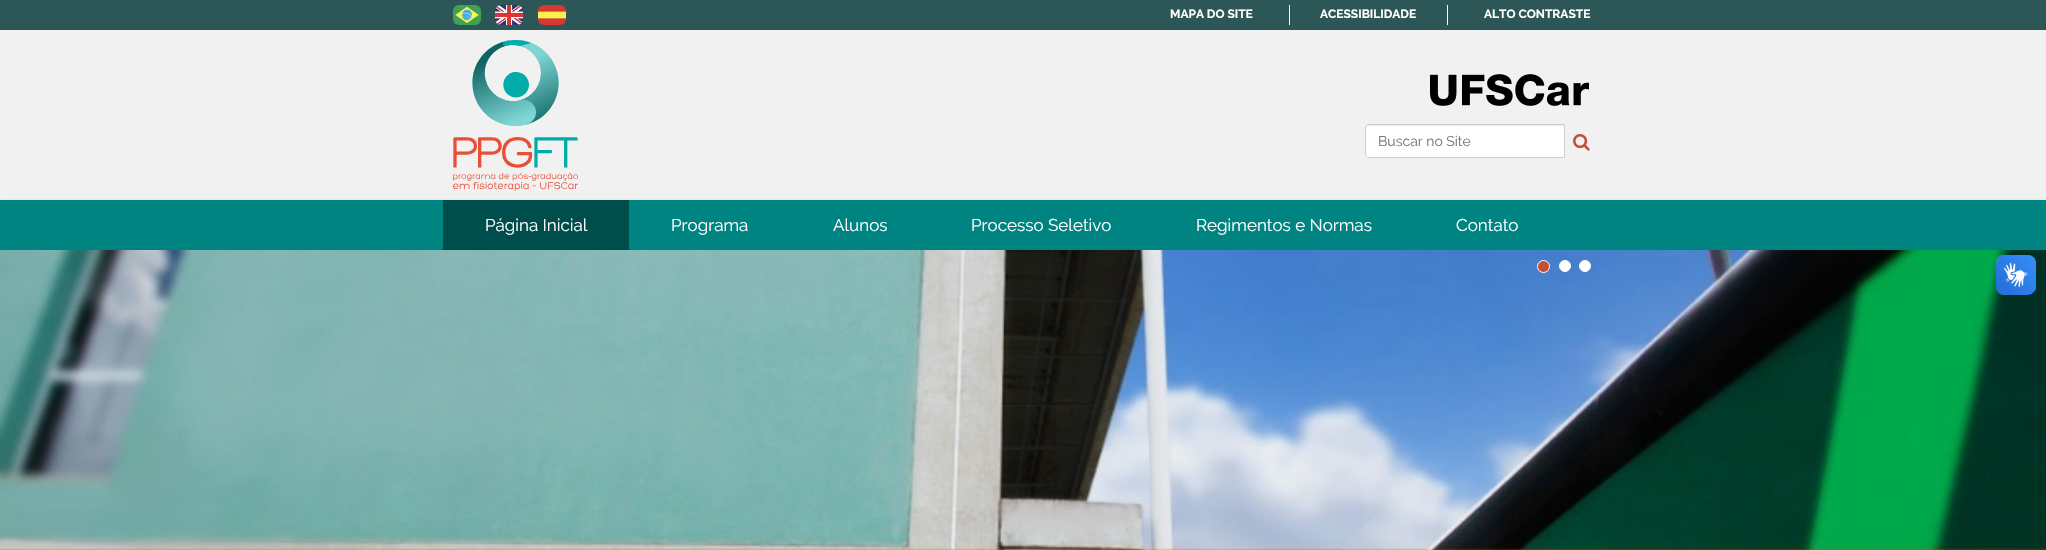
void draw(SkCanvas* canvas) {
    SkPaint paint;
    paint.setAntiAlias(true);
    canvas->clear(0xFFF1F1F1);
    paint.setColor(0xFF2C5756);
    canvas->drawRect(SkRect::MakeXYWH(0, 0, 2046, 30), paint);
    SkFont font1(fontMgr->matchFamilyStyle("Raleway", SkFontStyle::Bold()), 12);
    font1.setSubpixel(true);
    paint.setColor(0xFFFFFFFF);
    canvas->drawString("MAPA DO SITE", 1170, 18, font1, paint);
    canvas->drawRect(SkRect::MakeXYWH(1447, 5, 1, 20), paint);
    canvas->drawRect(SkRect::MakeXYWH(1289, 5, 1, 20), paint);
    canvas->drawString("ACESSIBILIDADE", 1320, 18, font1, paint);
    canvas->drawString("ALTO CONTRASTE", 1484, 18, font1, paint);
    canvas->drawImageRect(SkImages::DeferredFromEncodedData(SkData::MakeFromFileName("img1.png")), SkRect::MakeXYWH(1430, 74, 159, 32), SkSamplingOptions());
    canvas->drawImageRect(SkImages::DeferredFromEncodedData(SkData::MakeFromFileName("img2.png")), SkRect::MakeXYWH(453, 5, 28, 20), SkSamplingOptions());
    canvas->drawImageRect(SkImages::DeferredFromEncodedData(SkData::MakeFromFileName("img3.png")), SkRect::MakeXYWH(495, 5, 28, 20), SkSamplingOptions());
    canvas->drawImageRect(SkImages::DeferredFromEncodedData(SkData::MakeFromFileName("img4.png")), SkRect::MakeXYWH(538, 5, 28, 20), SkSamplingOptions());
    canvas->drawImageRect(SkImages::DeferredFromEncodedData(SkData::MakeFromFileName("img5.png")), SkRect::MakeXYWH(453, 40, 125, 151), SkSamplingOptions());
    canvas->drawPath(SkPathBuilder().moveTo(1369, 124).lineTo(1565, 124).lineTo(1565, 158).lineTo(1369, 158).cubicTo(1367, 158, 1365, 156, 1365, 154).lineTo(1365, 128).cubicTo(1365, 126, 1367, 124, 1369, 124).close().detach(), paint);
    paint.setColor(0xFFECECEC);
    canvas->drawPath(SkPathBuilder().moveTo(1369, 126).lineTo(1564, 126).lineTo(1564, 125).lineTo(1369, 125).cubicTo(1367, 125, 1366, 127, 1366, 129).cubicTo(1366, 127, 1367, 126, 1369, 126).close().detach(), paint);
    paint.setStyle(SkPaint::kStroke_Style);
    paint.setStrokeWidth(1);
    paint.setColor(0xFFCCCCCC);
    canvas->drawPath(SkPathBuilder().moveTo(1369, 124.5f).lineTo(1564.5f, 124.5f).lineTo(1564.5f, 157.5f).lineTo(1369, 157.5f).cubicTo(1367, 157.5f, 1365.5f, 156, 1365.5f, 154).lineTo(1365.5f, 128).cubicTo(1365.5f, 126, 1367, 124.5f, 1369, 124.5f).close().detach(), paint);
    SkFont font2(fontMgr->matchFamilyStyle("Raleway", SkFontStyle::Normal()), 14);
    font2.setSubpixel(true);
    paint.setStyle(SkPaint::kFill_Style);
    paint.setColor(0xFF777777);
    canvas->drawString("Buscar no Site", 1378, 146, font2, paint);
    canvas->drawImageRect(SkImages::DeferredFromEncodedData(SkData::MakeFromFileName("img6.png")), SkRect::MakeXYWH(1573, 134, 17, 17), SkSamplingOptions());
    paint.setColor(0x2B000000);
    paint.setMaskFilter(SkMaskFilter::MakeBlur(kNormal_SkBlurStyle, 1.5f));
    canvas->drawRect(SkRect::MakeXYWH(0, 201, 2046, 50), paint);
    paint.setMaskFilter(nullptr);
    paint.setColor(0xFF008481);
    canvas->drawRect(SkRect::MakeXYWH(0, 200, 2046, 50), paint);
    paint.setColor(0xFF004E4C);
    canvas->drawRect(SkRect::MakeXYWH(443, 200, 186, 50), paint);
    SkFont font3(fontMgr->matchFamilyStyle("Raleway", SkFontStyle::Normal()), 17);
    font3.setSubpixel(true);
    paint.setColor(0xFFFFFFFF);
    canvas->drawString("Página Inicial", 485, 231, font3, paint);
    canvas->drawString("Programa", 671, 231, font3, paint);
    canvas->drawString("Alunos", 833, 231, font3, paint);
    canvas->drawString("Processo Seletivo", 971, 231, font3, paint);
    canvas->drawString("Regimentos e Normas", 1196, 231, font3, paint);
    canvas->drawString("Contato", 1456, 231, font3, paint);
    canvas->drawImageRect(SkImages::DeferredFromEncodedData(SkData::MakeFromFileName("img7.png")), SkRect::MakeXYWH(0, 250, 2046, 300), SkSamplingOptions());
    paint.setColor(0xFFC25036);
    canvas->drawCircle(1543.5f, 266.5f, 6, paint);
    paint.setStyle(SkPaint::kStroke_Style);
    paint.setColor(0xFFFFFFFF);
    canvas->drawCircle(1543.5f, 266.5f, 6, paint);
    paint.setStyle(SkPaint::kFill_Style);
    canvas->drawCircle(1565, 266, 5.5f, paint);
    paint.setStyle(SkPaint::kStroke_Style);
    canvas->drawCircle(1565, 266, 5.5f, paint);
    paint.setStyle(SkPaint::kFill_Style);
    canvas->drawCircle(1585, 266, 5.5f, paint);
    paint.setStyle(SkPaint::kStroke_Style);
    canvas->drawCircle(1585, 266, 5.5f, paint);
    canvas->drawImageRect(SkImages::DeferredFromEncodedData(SkData::MakeFromFileName("img8.png")), SkRect::MakeXYWH(1996, 255, 40, 40), SkSamplingOptions());
    canvas->drawImageRect(SkImages::DeferredFromEncodedData(SkData::MakeFromFileName("img9.png")), SkRect::MakeXYWH(1996, 255, 40, 40), SkSamplingOptions());
}
